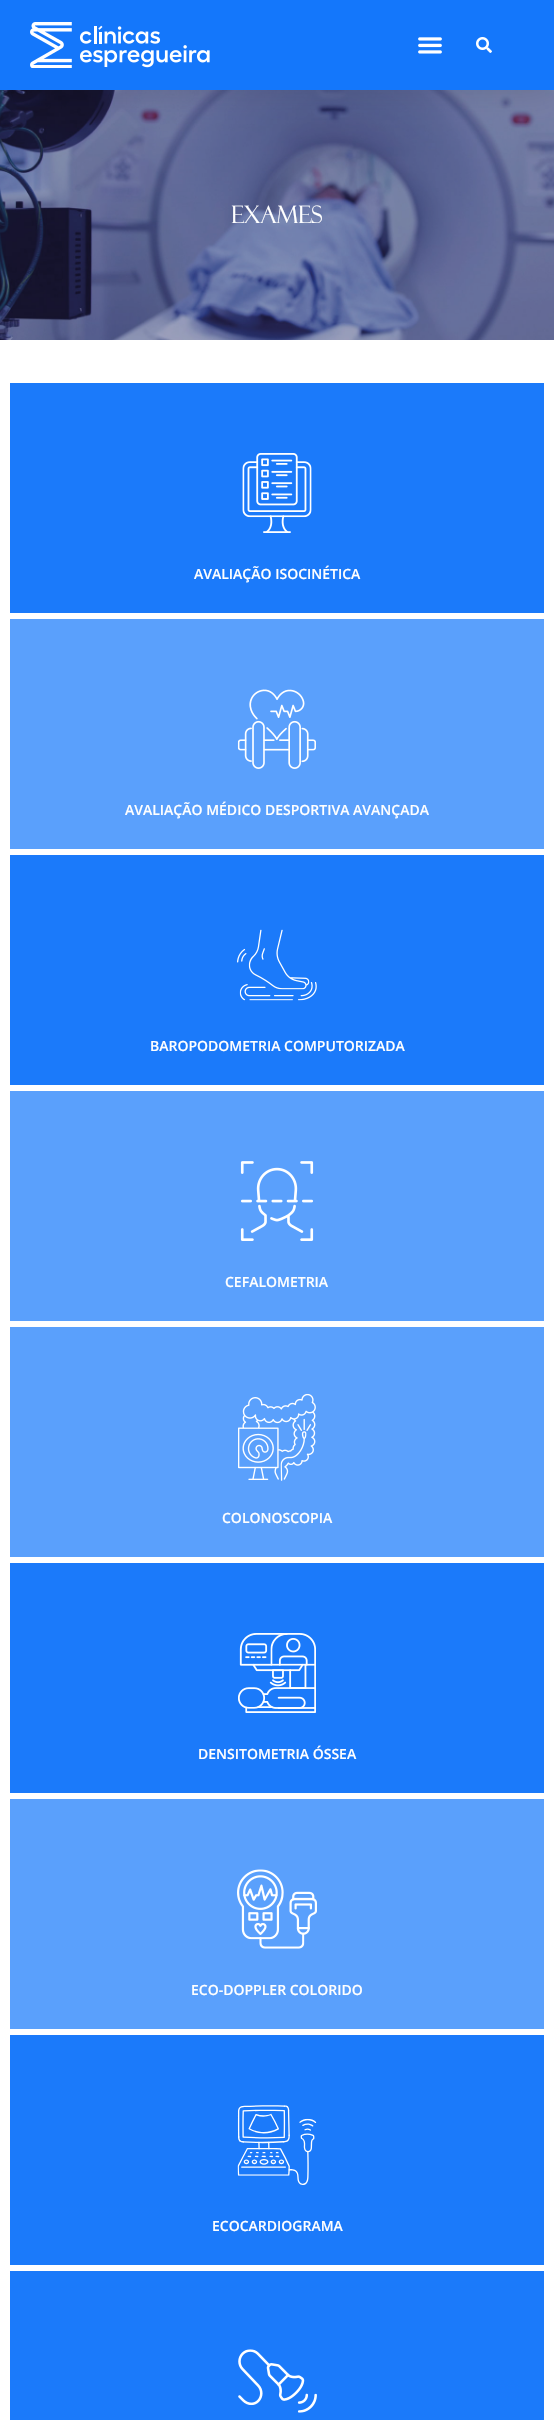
void draw(SkCanvas* canvas) {
    SkPaint paint;
    paint.setAntiAlias(true);
    canvas->clear(0xFFFFFFFF);
    canvas->drawImageRect(SkImages::DeferredFromEncodedData(SkData::MakeFromFileName("img4.png")), SkRect::MakeXYWH(0, 90, 554, 250), SkSamplingOptions());
    paint.setColor(0x1A000000);
    paint.setMaskFilter(SkMaskFilter::MakeBlur(kNormal_SkBlurStyle, 15));
    canvas->drawRect(SkRect::MakeXYWH(0, 5, 554, 90), paint);
    paint.setMaskFilter(nullptr);
    paint.setColor(0xFF1477FB);
    canvas->drawRect(SkRect::MakeXYWH(0, 0, 554, 90), paint);
    canvas->drawImageRect(SkImages::DeferredFromEncodedData(SkData::MakeFromFileName("img1.png")), SkRect::MakeXYWH(30, 22, 180, 46), SkSamplingOptions());
    canvas->drawImageRect(SkImages::DeferredFromEncodedData(SkData::MakeFromFileName("img2.png")), SkRect::MakeXYWH(418, 37, 24, 17), SkSamplingOptions());
    canvas->drawImageRect(SkImages::DeferredFromEncodedData(SkData::MakeFromFileName("img3.png")), SkRect::MakeXYWH(476, 37, 16, 16), SkSamplingOptions());
    SkFont font1(fontMgr->matchFamilyStyle("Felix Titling", SkFontStyle::Normal()), 24);
    font1.setSubpixel(true);
    paint.setColor(0xFFFFFFFF);
    canvas->drawString("EXAMES", 231, 223, font1, paint);
    paint.setColor(0xFF1B7AFA);
    canvas->drawRect(SkRect::MakeXYWH(10, 383, 534, 230), paint);
    canvas->drawImageRect(SkImages::DeferredFromEncodedData(SkData::MakeFromFileName("img5.png")), SkRect::MakeXYWH(242, 453, 70, 80), SkSamplingOptions());
    SkFont font2(fontMgr->matchFamilyStyle("Open Sans", SkFontStyle(600, SkFontStyle::kNormal_Width, SkFontStyle::kUpright_Slant)), 14);
    font2.setSubpixel(true);
    paint.setColor(0xFFFFFFFF);
    canvas->drawString("AVALIAÇÃO ISOCINÉTICA", 194, 579, font2, paint);
    paint.setColor(0xFF5AA0FC);
    canvas->drawRect(SkRect::MakeXYWH(10, 619, 534, 230), paint);
    canvas->drawImageRect(SkImages::DeferredFromEncodedData(SkData::MakeFromFileName("img6.png")), SkRect::MakeXYWH(237, 689, 79, 80), SkSamplingOptions());
    paint.setColor(0xFFFFFFFF);
    canvas->drawString("AVALIAÇÃO MÉDICO DESPORTIVA AVANÇADA", 125, 815, font2, paint);
    paint.setColor(0xFF1B7AFA);
    canvas->drawRect(SkRect::MakeXYWH(10, 855, 534, 230), paint);
    canvas->drawImageRect(SkImages::DeferredFromEncodedData(SkData::MakeFromFileName("img7.png")), SkRect::MakeXYWH(237, 929, 80, 72), SkSamplingOptions());
    paint.setColor(0xFFFFFFFF);
    canvas->drawString("BAROPODOMETRIA COMPUTORIZADA", 150, 1051, font2, paint);
    paint.setColor(0xFF5AA0FC);
    canvas->drawRect(SkRect::MakeXYWH(10, 1091, 534, 230), paint);
    canvas->drawImageRect(SkImages::DeferredFromEncodedData(SkData::MakeFromFileName("img8.png")), SkRect::MakeXYWH(240, 1161, 74, 80), SkSamplingOptions());
    paint.setColor(0xFFFFFFFF);
    canvas->drawString("CEFALOMETRIA", 225, 1287, font2, paint);
    paint.setColor(0xFF5AA0FC);
    canvas->drawRect(SkRect::MakeXYWH(10, 1327, 534, 230), paint);
    canvas->drawImageRect(SkImages::DeferredFromEncodedData(SkData::MakeFromFileName("img9.png")), SkRect::MakeXYWH(238, 1393, 78, 88), SkSamplingOptions());
    paint.setColor(0xFFFFFFFF);
    canvas->drawString("COLONOSCOPIA", 222, 1523, font2, paint);
    paint.setColor(0xFF1B7AFA);
    canvas->drawRect(SkRect::MakeXYWH(10, 1563, 534, 230), paint);
    canvas->drawImageRect(SkImages::DeferredFromEncodedData(SkData::MakeFromFileName("img10.png")), SkRect::MakeXYWH(238, 1633, 78, 80), SkSamplingOptions());
    paint.setColor(0xFFFFFFFF);
    canvas->drawString("DENSITOMETRIA ÓSSEA", 198, 1759, font2, paint);
    paint.setColor(0xFF5AA0FC);
    canvas->drawRect(SkRect::MakeXYWH(10, 1799, 534, 230), paint);
    canvas->drawImageRect(SkImages::DeferredFromEncodedData(SkData::MakeFromFileName("img11.png")), SkRect::MakeXYWH(237, 1869, 80, 80), SkSamplingOptions());
    paint.setColor(0xFFFFFFFF);
    canvas->drawString("ECO-DOPPLER COLORIDO", 191, 1995, font2, paint);
    paint.setColor(0xFF1B7AFA);
    canvas->drawRect(SkRect::MakeXYWH(10, 2035, 534, 230), paint);
    canvas->drawImageRect(SkImages::DeferredFromEncodedData(SkData::MakeFromFileName("img12.png")), SkRect::MakeXYWH(237, 2105, 80, 80), SkSamplingOptions());
    paint.setColor(0xFFFFFFFF);
    canvas->drawString("ECOCARDIOGRAMA", 212, 2231, font2, paint);
    paint.setColor(0xFF1B7AFA);
    canvas->drawRect(SkRect::MakeXYWH(10, 2271, 534, 149), paint);
    canvas->drawImageRect(SkImages::DeferredFromEncodedData(SkData::MakeFromFileName("img13.png")), SkRect::MakeXYWH(238, 2349, 79, 64), SkSamplingOptions());
}
